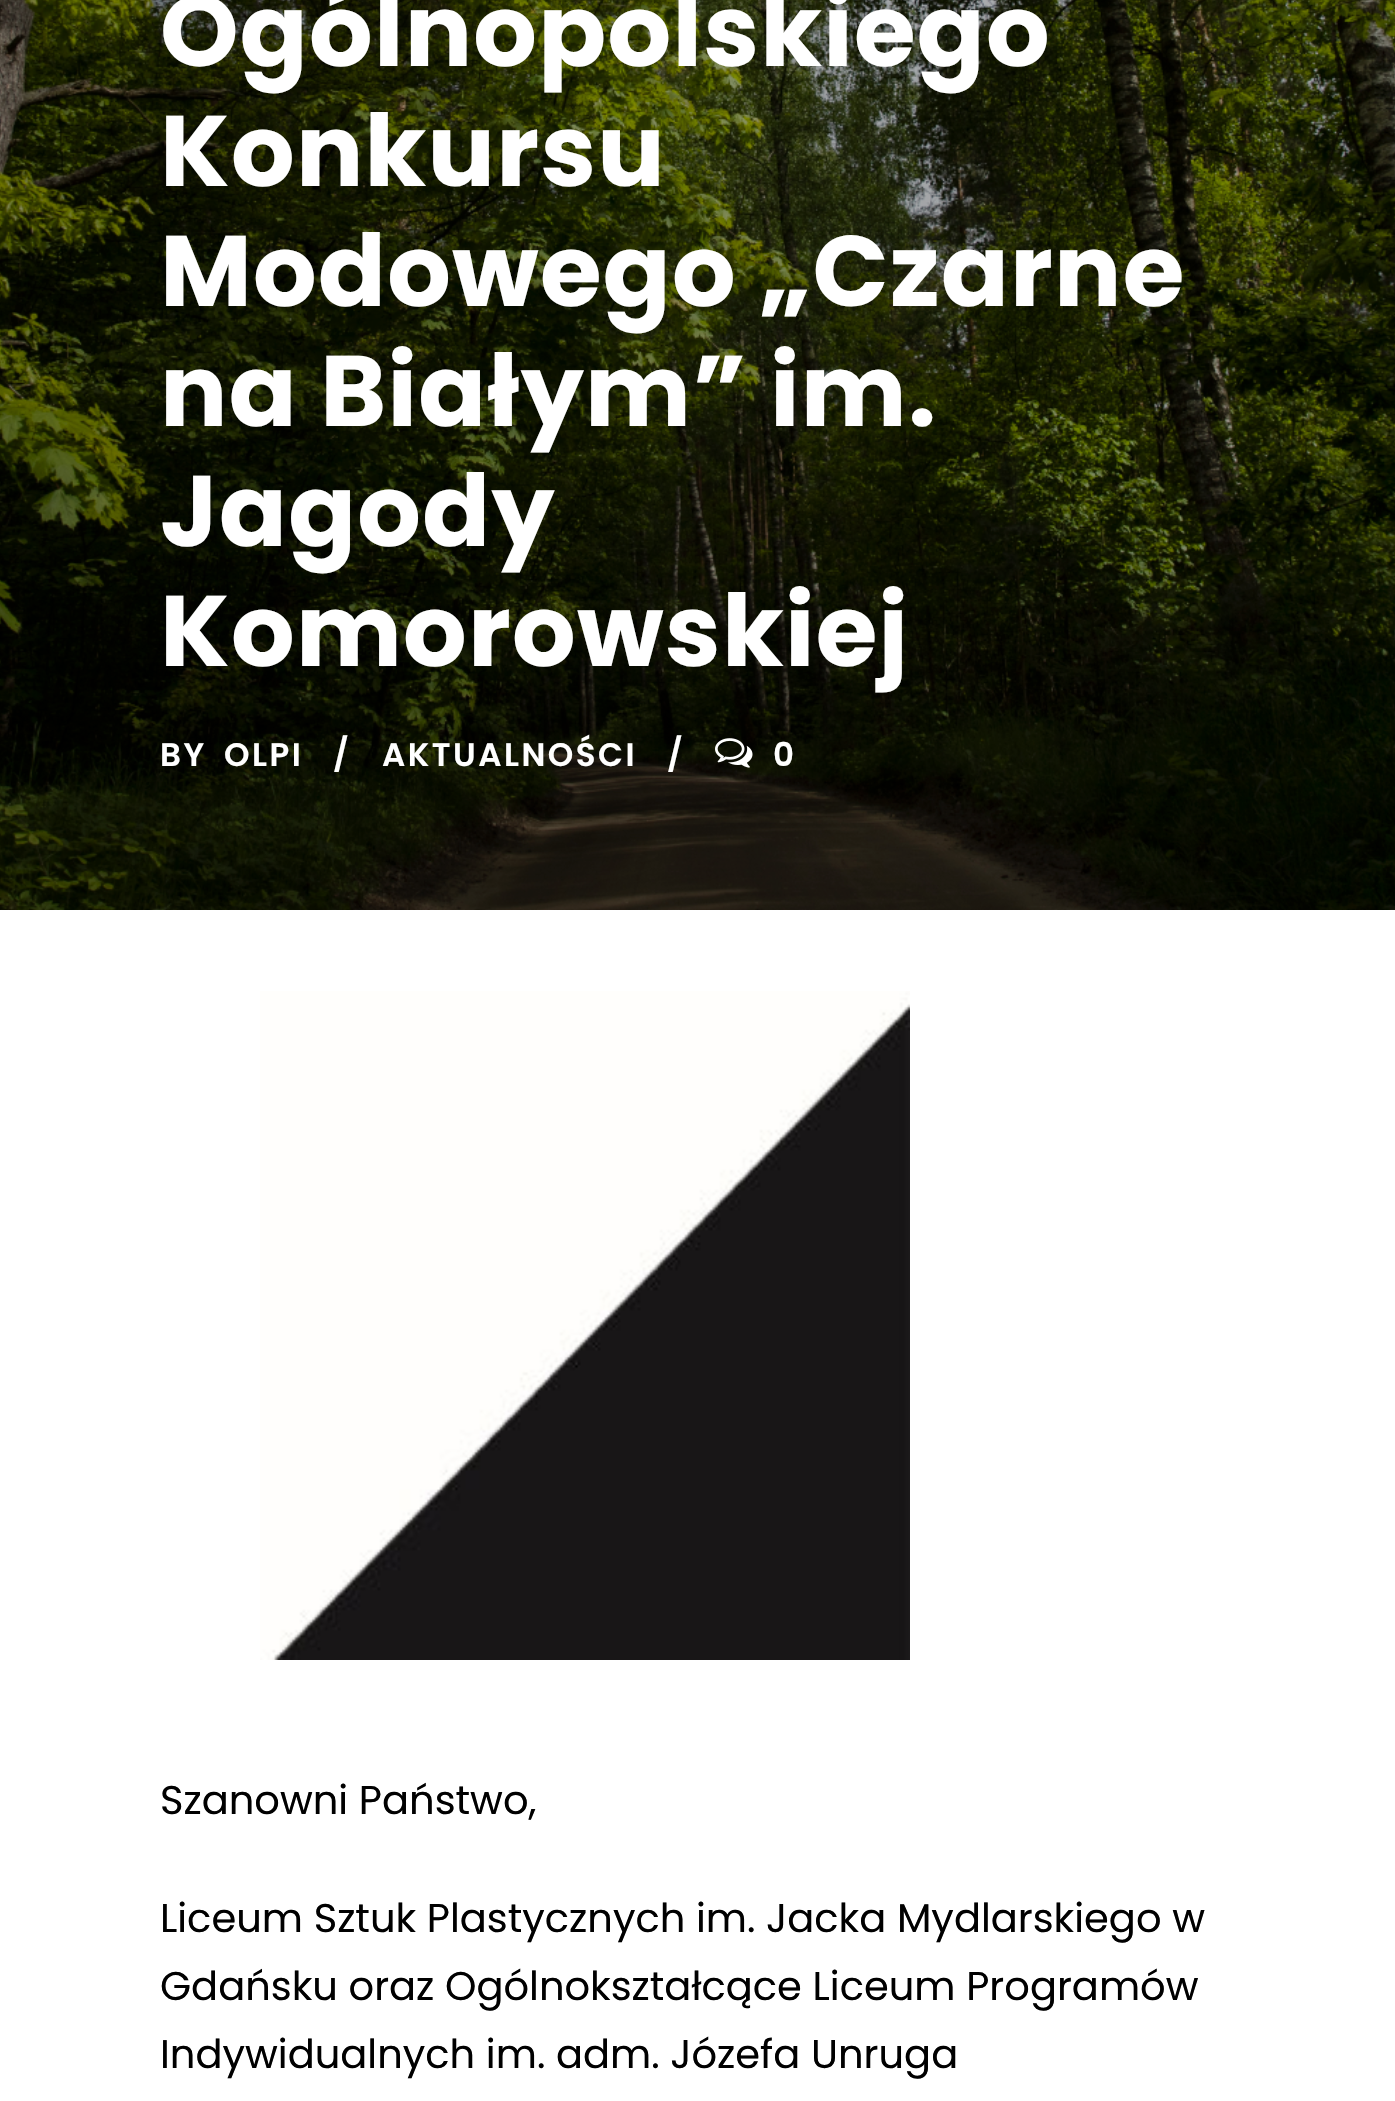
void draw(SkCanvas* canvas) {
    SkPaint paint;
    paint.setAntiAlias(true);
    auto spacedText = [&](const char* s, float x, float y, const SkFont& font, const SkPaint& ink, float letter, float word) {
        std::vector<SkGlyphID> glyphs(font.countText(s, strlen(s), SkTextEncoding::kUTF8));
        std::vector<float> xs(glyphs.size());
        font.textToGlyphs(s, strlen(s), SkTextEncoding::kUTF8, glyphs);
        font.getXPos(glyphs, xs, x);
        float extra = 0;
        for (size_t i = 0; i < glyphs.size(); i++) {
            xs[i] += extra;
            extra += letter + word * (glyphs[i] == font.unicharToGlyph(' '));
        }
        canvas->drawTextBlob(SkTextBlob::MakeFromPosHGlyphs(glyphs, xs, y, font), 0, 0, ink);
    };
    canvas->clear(0xFFFFFFFF);
    canvas->drawImageRect(SkImages::DeferredFromEncodedData(SkData::MakeFromFileName("img1.png")), SkRect::MakeXYWH(0, 0, 1395, 910), SkSamplingOptions());
    SkFont font1(fontMgr->matchFamilyStyle("Poppins", SkFontStyle::Bold()), 100);
    font1.setSubpixel(true);
    paint.setColor(0xFFFFFFFF);
    spacedText("Ogólnopolskiego", 160, 66, font1, paint, 1.25f, 0);
    spacedText("Konkursu", 160, 186, font1, paint, 1.25f, 0);
    spacedText("Modowego „Czarne", 160, 306, font1, paint, 1.25f, 0);
    spacedText("na Białym” im.", 160, 426, font1, paint, 1.25f, 0);
    spacedText("Jagody", 160, 546, font1, paint, 1.25f, 0);
    spacedText("Komorowskiej", 160, 666, font1, paint, 1.25f, 0);
    SkFont font2(fontMgr->matchFamilyStyle("Poppins", SkFontStyle(600, SkFontStyle::kNormal_Width, SkFontStyle::kUpright_Slant)), 32.5f);
    font2.setSubpixel(true);
    spacedText("BY", 160, 766, font2, paint, 2.5f, 0);
    spacedText("OLPI", 224, 766, font2, paint, 2.5f, 0);
    spacedText("/", 333, 766, font2, paint, 2.5f, 0);
    spacedText("AKTUALNOŚCI", 382, 766, font2, paint, 2.5f, 0);
    spacedText("/", 667, 766, font2, paint, 2.5f, 0);
    canvas->drawImageRect(SkImages::DeferredFromEncodedData(SkData::MakeFromFileName("img2.png")), SkRect::MakeXYWH(715, 738, 38, 30), SkSamplingOptions());
    spacedText("0", 773, 766, font2, paint, 2.5f, 0);
    canvas->drawImageRect(SkImages::DeferredFromEncodedData(SkData::MakeFromFileName("img3.png")), SkRect::MakeXYWH(260, 991, 650, 669), SkSamplingOptions());
    SkFont font3(fontMgr->matchFamilyStyle("Poppins", SkFontStyle::Normal()), 40);
    font3.setSubpixel(true);
    paint.setColor(0xFF000000);
    canvas->drawString("Szanowni Państwo,", 160, 1814, font3, paint);
    canvas->drawString("Liceum Sztuk Plastycznych im. Jacka Mydlarskiego w", 160, 1932, font3, paint);
    canvas->drawString("Gdańsku oraz Ogólnokształcące Liceum Programów", 160, 2000, font3, paint);
    canvas->drawString("Indywidualnych im. adm. Józefa Unruga", 160, 2068, font3, paint);
}
